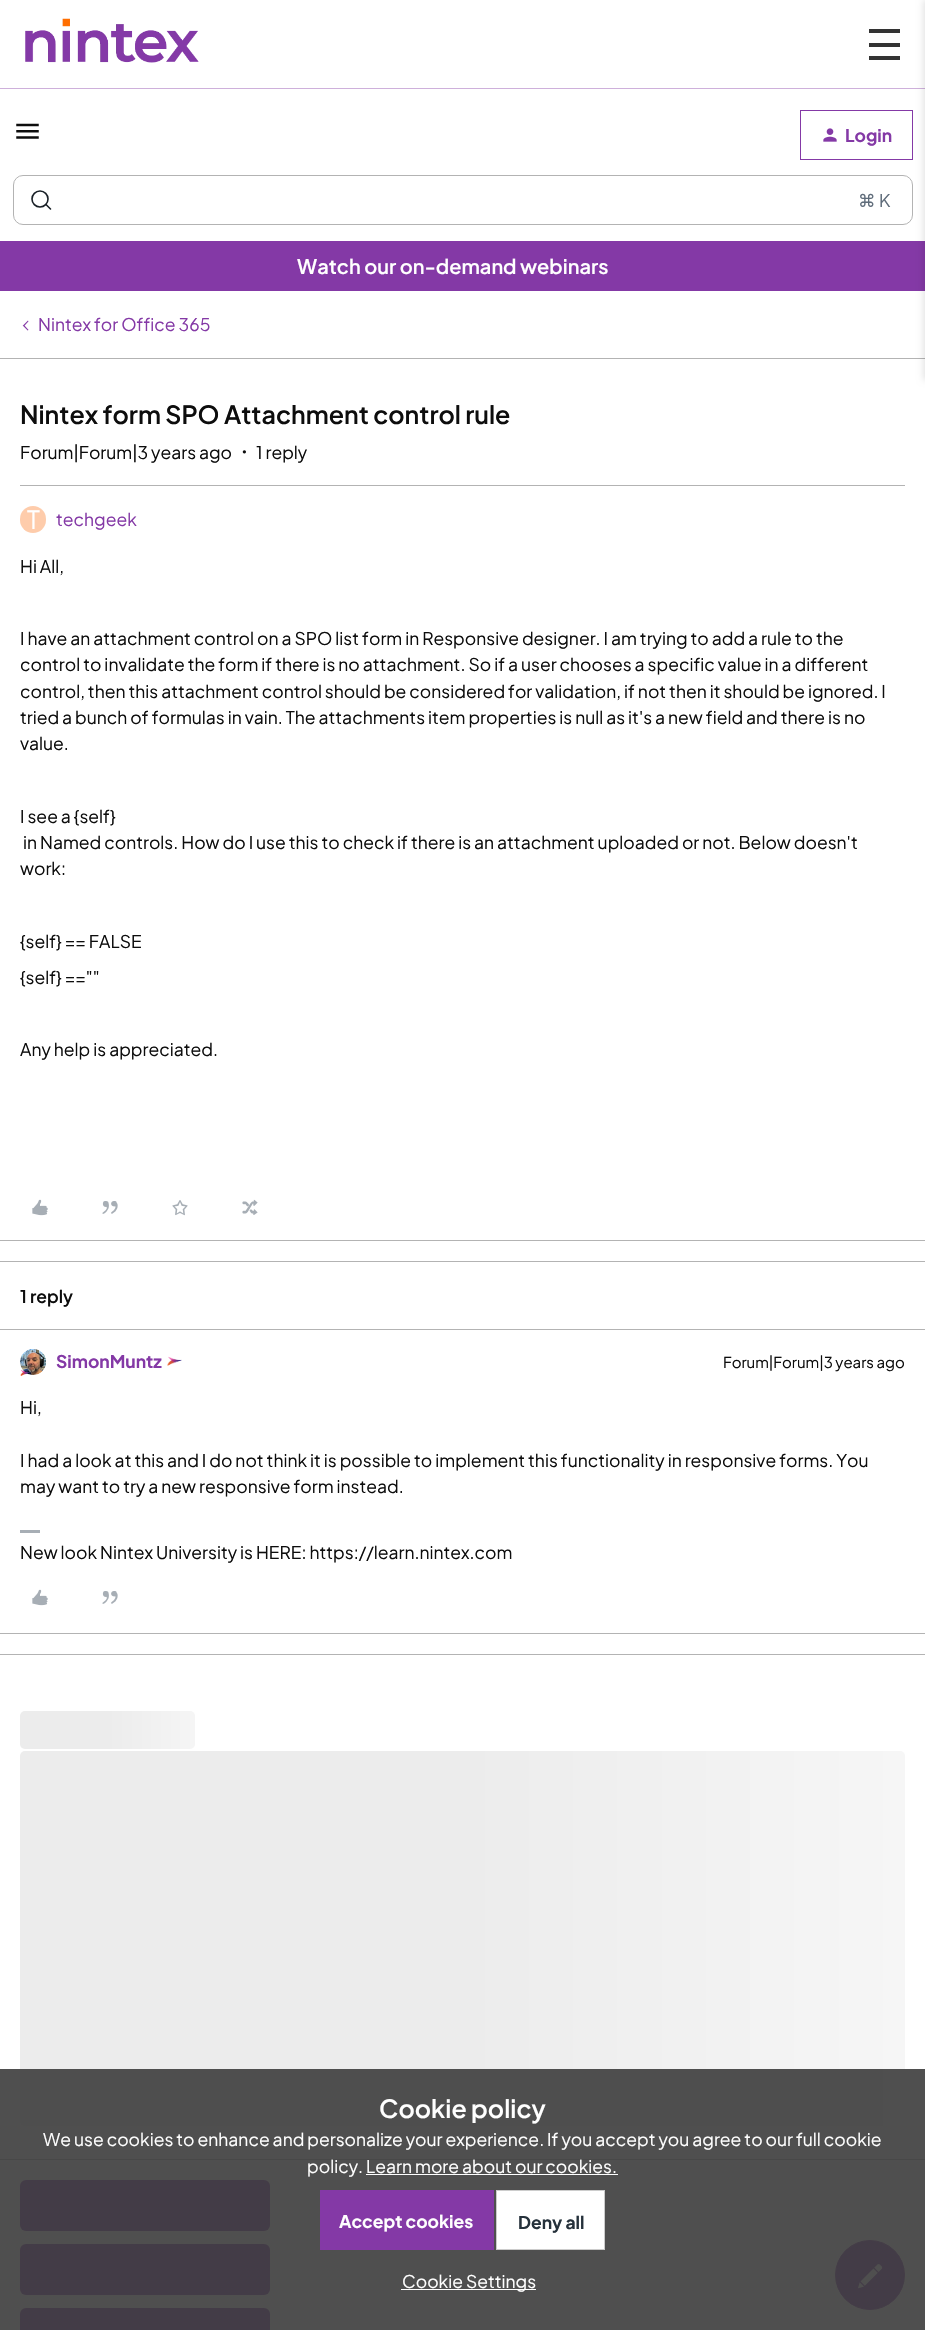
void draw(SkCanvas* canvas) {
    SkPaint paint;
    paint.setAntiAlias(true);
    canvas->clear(0xFFFFFFFF);
    canvas->drawImageRect(SkImages::DeferredFromEncodedData(SkData::MakeFromFileName("img1.png")), SkRect::MakeXYWH(25, 18, 174, 45), SkSamplingOptions());
    paint.setColor(0xFF333333);
    canvas->drawRect(SkRect::MakeXYWH(869, 29, 31, 4), paint);
    canvas->drawRect(SkRect::MakeXYWH(869, 43, 31, 4), paint);
    canvas->drawRect(SkRect::MakeXYWH(869, 56, 31, 4), paint);
    paint.setColor(0xFFCEB0DB);
    canvas->drawRect(SkRect::MakeXYWH(0, 88, 925, 1), paint);
    paint.setColor(0xFF8439A6);
    canvas->drawRect(SkRect::MakeXYWH(0, 241, 925, 50), paint);
    paint.setColor(0xFFB3B3B3);
    canvas->drawRect(SkRect::MakeXYWH(0, 358, 925, 1), paint);
    paint.setColor(0x1A000000);
    paint.setMaskFilter(SkMaskFilter::MakeBlur(kNormal_SkBlurStyle, 3));
    canvas->drawRect(SkRect::MakeXYWH(923, 0, 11, 380), paint);
    paint.setMaskFilter(nullptr);
    canvas->drawImageRect(SkImages::DeferredFromEncodedData(SkData::MakeFromFileName("img2.png")), SkRect::MakeXYWH(16, 123, 23, 16), SkSamplingOptions());
    paint.setStyle(SkPaint::kStroke_Style);
    paint.setStrokeWidth(1);
    paint.setColor(0xFF8439A6);
    canvas->drawRect(SkRect::MakeXYWH(800.5f, 110.5f, 112, 49), paint);
    canvas->drawImageRect(SkImages::DeferredFromEncodedData(SkData::MakeFromFileName("img3.png")), SkRect::MakeXYWH(823, 128, 14, 14), SkSamplingOptions());
    SkFont font1(fontMgr->matchFamilyStyle("Plus Jakarta Sans", SkFontStyle::Bold()), 17.5f);
    font1.setSubpixel(true);
    paint.setStyle(SkPaint::kFill_Style);
    canvas->drawString("Login", 845, 142, font1, paint);
    paint.setStyle(SkPaint::kStroke_Style);
    paint.setColor(0xFFB3B3B3);
    canvas->drawRoundRect(SkRect::MakeXYWH(13.5f, 175.5f, 899, 49), 9.5f, 9.5f, paint);
    paint.setStrokeWidth(1.6f);
    paint.setColor(0xFF181F26);
    canvas->drawCircle(40, 199, 8, paint);
    paint.setStrokeCap(SkPaint::kRound_Cap);
    canvas->drawPath(SkPathBuilder().moveTo(46, 204.5f).lineTo(50.5f, 209).detach(), paint);
    SkFont font2(fontMgr->matchFamilyStyle("DejaVu Sans", SkFontStyle::Normal()), 17.5f);
    font2.setSubpixel(true);
    paint.setStyle(SkPaint::kFill_Style);
    paint.setColor(0xFF5F6C7A);
    canvas->drawString("⌘", 858, 207, font2, paint);
    SkFont font3(fontMgr->matchFamilyStyle("Plus Jakarta Sans", SkFontStyle::Normal()), 17.5f);
    font3.setSubpixel(true);
    canvas->drawString("K", 879, 207, font3, paint);
    SkFont font4(fontMgr->matchFamilyStyle("Plus Jakarta Sans", SkFontStyle(600, SkFontStyle::kNormal_Width, SkFontStyle::kUpright_Slant)), 20);
    font4.setSubpixel(true);
    paint.setColor(0xFFFFFFFF);
    canvas->drawString("Watch our on-demand webinars", 297, 274, font4, paint);
    canvas->drawImageRect(SkImages::DeferredFromEncodedData(SkData::MakeFromFileName("img4.png")), SkRect::MakeXYWH(22, 320, 7, 11), SkSamplingOptions());
    paint.setColor(0xFF8439A6);
    canvas->drawString("Nintex for Office 365", 38, 331, font3, paint);
    paint.setColor(0xFFB3B3B3);
    canvas->drawRect(SkRect::MakeXYWH(0, 1240, 925, 1), paint);
    SkFont font5(fontMgr->matchFamilyStyle("Plus Jakarta Sans", SkFontStyle(600, SkFontStyle::kNormal_Width, SkFontStyle::kUpright_Slant)), 25);
    font5.setSubpixel(true);
    paint.setColor(0xFF0D0D0D);
    canvas->drawString("Nintex form SPO Attachment control rule", 20, 424, font5, paint);
    canvas->drawString("Forum|Forum|3 years ago", 20, 459, font3, paint);
    canvas->drawImageRect(SkImages::DeferredFromEncodedData(SkData::MakeFromFileName("img5.png")), SkRect::MakeXYWH(242, 450, 4, 4), SkSamplingOptions());
    canvas->drawString("1 reply", 256, 459, font3, paint);
    paint.setColor(0xFFB3B3B3);
    canvas->drawRect(SkRect::MakeXYWH(20, 485, 885, 1), paint);
    paint.setColor(0xFFFECCAB);
    canvas->drawRoundRect(SkRect::MakeXYWH(20, 506, 26, 27), 13, 13, paint);
    SkFont font6(fontMgr->matchFamilyStyle("Plus Jakarta Sans", SkFontStyle::Normal()), 25);
    font6.setSubpixel(true);
    paint.setColor(0xFFFFFFFF);
    canvas->drawString("T", 27, 529, font6, paint);
    paint.setColor(0xFF8439A6);
    canvas->drawString("techgeek", 56, 526, font3, paint);
    paint.setColor(0xFF0D0D0D);
    canvas->drawString("Hi All,", 20, 573, font3, paint);
    canvas->drawString("I have an attachment control on a SPO list form in Responsive designer. I am trying to add a rule to the", 20, 645, font3, paint);
    canvas->drawString("control to invalidate the form if there is no attachment. So if a user chooses a specific value in a different", 20, 671, font3, paint);
    canvas->drawString("control, then this attachment control should be considered for validation, if not then it should be ignored. I", 20, 698, font3, paint);
    canvas->drawString("tried a bunch of formulas in vain. The attachments item properties is null as it's a new field and there is no", 20, 724, font3, paint);
    canvas->drawString("value.", 20, 750, font3, paint);
    canvas->drawString("I see a {self}", 20, 823, font3, paint);
    canvas->drawString("in Named controls. How do I use this to check if there is an attachment uploaded or not. Below doesn't", 23, 849, font3, paint);
    canvas->drawString("work:", 20, 875, font3, paint);
    canvas->drawString("{self} == FALSE", 20, 948, font3, paint);
    canvas->drawString("{self} ==\"\"", 20, 984, font3, paint);
    canvas->drawString("Any help is appreciated.", 20, 1056, font3, paint);
    canvas->drawImageRect(SkImages::DeferredFromEncodedData(SkData::MakeFromFileName("img6.png")), SkRect::MakeXYWH(32, 1199, 16, 17), SkSamplingOptions());
    canvas->drawImageRect(SkImages::DeferredFromEncodedData(SkData::MakeFromFileName("img7.png")), SkRect::MakeXYWH(102, 1201, 16, 13), SkSamplingOptions());
    canvas->drawImageRect(SkImages::DeferredFromEncodedData(SkData::MakeFromFileName("img8.png")), SkRect::MakeXYWH(172, 1200, 16, 16), SkSamplingOptions());
    canvas->drawImageRect(SkImages::DeferredFromEncodedData(SkData::MakeFromFileName("img9.png")), SkRect::MakeXYWH(242, 1199, 16, 16), SkSamplingOptions());
    paint.setColor(0xFFB3B3B3);
    canvas->drawRect(SkRect::MakeXYWH(0, 1261, 925, 1), paint);
    canvas->drawRect(SkRect::MakeXYWH(0, 1633, 925, 1), paint);
    canvas->drawRect(SkRect::MakeXYWH(0, 1329, 925, 1), paint);
    SkFont font7(fontMgr->matchFamilyStyle("Plus Jakarta Sans", SkFontStyle(600, SkFontStyle::kNormal_Width, SkFontStyle::kUpright_Slant)), 17.5f);
    font7.setSubpixel(true);
    paint.setColor(0xFF0D0D0D);
    canvas->drawString("1 reply", 20, 1303, font7, paint);
    canvas->drawImageRect(SkImages::DeferredFromEncodedData(SkData::MakeFromFileName("img10.png")), SkRect::MakeXYWH(20, 1349, 26, 26), SkSamplingOptions());
    canvas->drawImageRect(SkImages::DeferredFromEncodedData(SkData::MakeFromFileName("img11.png")), SkRect::MakeXYWH(20, 1370, 11, 6), SkSamplingOptions());
    paint.setColor(0xFF8439A6);
    canvas->drawString("SimonMuntz", 56, 1368, font1, paint);
    canvas->drawImageRect(SkImages::DeferredFromEncodedData(SkData::MakeFromFileName("img12.png")), SkRect::MakeXYWH(167, 1356, 15, 10), SkSamplingOptions());
    SkFont font8(fontMgr->matchFamilyStyle("Plus Jakarta Sans", SkFontStyle::Normal()), 15);
    font8.setSubpixel(true);
    paint.setColor(0xFF0D0D0D);
    canvas->drawString("Forum|Forum|3 years ago", 723, 1368, font8, paint);
    canvas->drawString("Hi,", 20, 1414, font3, paint);
    canvas->drawString("I had a look at this and I do not think it is possible to implement this functionality in responsive forms. You", 20, 1467, font3, paint);
    canvas->drawString("may want to try a new responsive form instead.", 20, 1493, font3, paint);
    paint.setColor(0xFFA7AEB5);
    canvas->drawRect(SkRect::MakeXYWH(20, 1530, 20, 3), paint);
    paint.setColor(0xFF0D0D0D);
    canvas->drawString("New look Nintex University is HERE: https://learn.nintex.com", 20, 1559, font3, paint);
    canvas->drawImageRect(SkImages::DeferredFromEncodedData(SkData::MakeFromFileName("img6.png")), SkRect::MakeXYWH(32, 1589, 16, 17), SkSamplingOptions());
    canvas->drawImageRect(SkImages::DeferredFromEncodedData(SkData::MakeFromFileName("img7.png")), SkRect::MakeXYWH(102, 1591, 16, 13), SkSamplingOptions());
    paint.setColor(0xFFB3B3B3);
    canvas->drawRect(SkRect::MakeXYWH(0, 1654, 925, 1), paint);
    canvas->drawRect(SkRect::MakeXYWH(0, 2159, 925, 1), paint);
    {
        const SkColor colors[] = {0xFFECECEC, 0xFFF5F5F5, 0xFFECECEC};
        const float stops[] = {0.25f, 0.5f, 0.75f};
        const SkPoint ends[] = {{20, 1730}, {370, 1730}};
        paint.setShader(SkGradientShader::MakeLinear(ends, colors, stops, 3, SkTileMode::kClamp));
        paint.setAlpha(255);
    }
    canvas->drawRoundRect(SkRect::MakeXYWH(20, 1711, 175, 38), 5, 5, paint);
    {
        const SkColor colors[] = {0xFFECECEC, 0xFFF6F6F6, 0xFFECECEC};
        const float stops[] = {0.25f, 0.5f, 0.75f};
        const SkPoint ends[] = {{20, 1939}, {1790, 1939}};
        paint.setShader(SkGradientShader::MakeLinear(ends, colors, stops, 3, SkTileMode::kClamp));
        paint.setAlpha(255);
    }
    canvas->drawRoundRect(SkRect::MakeXYWH(20, 1751, 885, 375), 5, 5, paint);
    paint.setShader(nullptr);
    paint.setColor(0xFF8439A6);
    canvas->drawRoundRect(SkRect::MakeXYWH(20, 2180, 250, 51), 6, 6, paint);
    canvas->drawRoundRect(SkRect::MakeXYWH(20, 2244, 250, 51), 6, 6, paint);
    canvas->drawRoundRect(SkRect::MakeXYWH(20, 2308, 250, 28), 6, 6, paint);
    canvas->drawCircle(870, 2275, 34.5f, paint);
    paint.setStyle(SkPaint::kStroke_Style);
    paint.setStrokeWidth(1);
    paint.setStrokeCap(SkPaint::kButt_Cap);
    canvas->drawCircle(870, 2275, 34.5f, paint);
    canvas->drawImageRect(SkImages::DeferredFromEncodedData(SkData::MakeFromFileName("img13.png")), SkRect::MakeXYWH(858, 2264, 25, 25), SkSamplingOptions());
    paint.setStyle(SkPaint::kFill_Style);
    paint.setColor(0xE63C3C3C);
    canvas->drawRect(SkRect::MakeXYWH(0, 2069, 925, 261), paint);
    paint.setColor(0xFFFFFFFF);
    canvas->drawString("Cookie policy", 379, 2118, font5, paint);
    canvas->drawString("We use cookies to enhance and personalize your experience. If you accept you agree to our full cookie", 43, 2146, font3, paint);
    canvas->drawString("policy. Learn more about our cookies.", 307, 2173, font3, paint);
    canvas->drawRect(SkRect::MakeXYWH(366, 2174, 252, 1), paint);
    paint.setColor(0xFF8439A6);
    canvas->drawRect(SkRect::MakeXYWH(320, 2190, 174, 60), paint);
    paint.setColor(0xFFFFFFFF);
    canvas->drawString("Accept cookies", 339, 2228, font1, paint);
    canvas->drawRect(SkRect::MakeXYWH(496.5f, 2190.5f, 108, 59), paint);
    paint.setStyle(SkPaint::kStroke_Style);
    paint.setColor(0xFFCCCCCC);
    canvas->drawRect(SkRect::MakeXYWH(496.5f, 2190.5f, 108, 59), paint);
    paint.setStyle(SkPaint::kFill_Style);
    paint.setColor(0xFF25313B);
    canvas->drawString("Deny all", 518, 2229, font1, paint);
    paint.setColor(0xFFFFFFFF);
    canvas->drawRect(SkRect::MakeXYWH(401, 2289, 135, 1), paint);
    canvas->drawString("Cookie Settings", 402, 2288, font3, paint);
}
